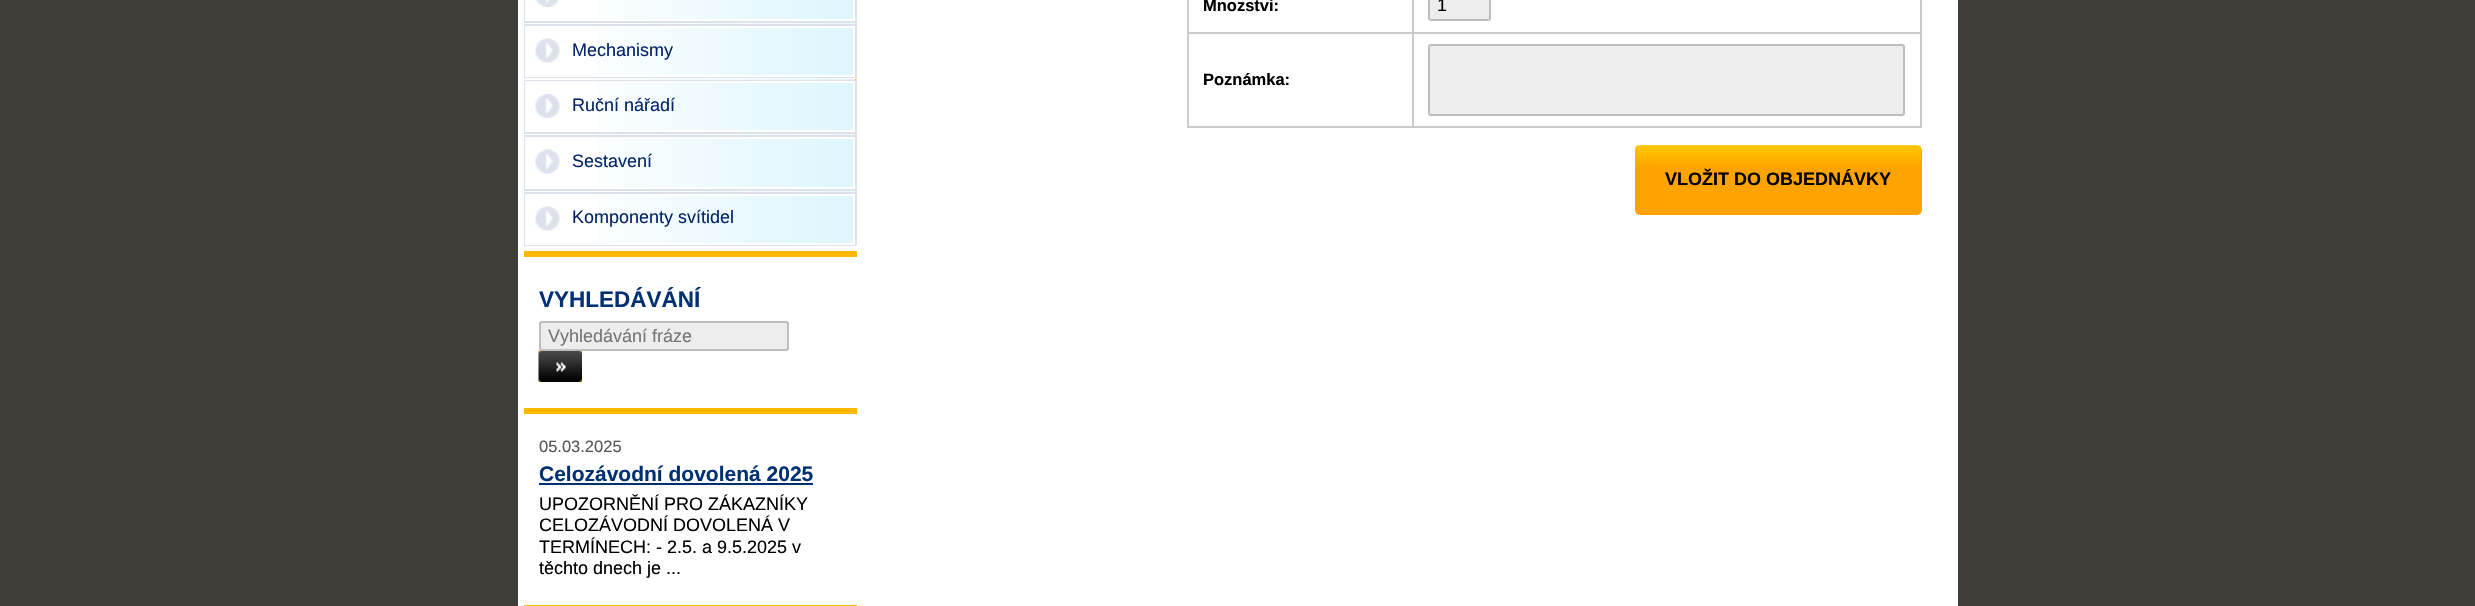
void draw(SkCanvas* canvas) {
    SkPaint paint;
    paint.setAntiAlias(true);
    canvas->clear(0xFF3F3E39);
    paint.setColor(0xFFFFFFFF);
    canvas->drawRect(SkRect::MakeXYWH(518, 0, 1440, 606), paint);
    paint.setColor(0xFFFFB700);
    canvas->drawRect(SkRect::MakeXYWH(524, 251, 333, 6), paint);
    canvas->drawImageRect(SkImages::DeferredFromEncodedData(SkData::MakeFromFileName("img1.png")), SkRect::MakeXYWH(596, 0, 257, 19), SkSamplingOptions());
    paint.setStyle(SkPaint::kStroke_Style);
    paint.setStrokeWidth(2);
    paint.setColor(0xFFDBE2EB);
    canvas->drawRect(SkRect::MakeXYWH(525, -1, 331, 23), paint);
    canvas->drawImageRect(SkImages::DeferredFromEncodedData(SkData::MakeFromFileName("img2.png")), SkRect::MakeXYWH(536, 0, 23, 7), SkSamplingOptions());
    paint.setColor(0xFFFFFFFF);
    canvas->drawRect(SkRect::MakeXYWH(526, -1, 328, 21), paint);
    canvas->drawImageRect(SkImages::DeferredFromEncodedData(SkData::MakeFromFileName("img3.png")), SkRect::MakeXYWH(596, 23, 261, 52), SkSamplingOptions());
    paint.setColor(0xFFDBE2EB);
    canvas->drawRect(SkRect::MakeXYWH(525, 25, 331, 52), paint);
    canvas->drawImageRect(SkImages::DeferredFromEncodedData(SkData::MakeFromFileName("img4.png")), SkRect::MakeXYWH(535, 38, 25, 25), SkSamplingOptions());
    paint.setColor(0xFFFFFFFF);
    canvas->drawRect(SkRect::MakeXYWH(526, 27, 328, 49), paint);
    SkFont font1(fontMgr->matchFamilyStyle("Liberation Sans", SkFontStyle::Normal()), 18);
    font1.setSubpixel(true);
    paint.setStyle(SkPaint::kFill_Style);
    paint.setColor(0xFF052568);
    canvas->drawString("Mechanismy", 572, 56, font1, paint);
    canvas->drawImageRect(SkImages::DeferredFromEncodedData(SkData::MakeFromFileName("img5.png")), SkRect::MakeXYWH(596, 79, 261, 51), SkSamplingOptions());
    paint.setStyle(SkPaint::kStroke_Style);
    paint.setColor(0xFFDBE2EB);
    canvas->drawRect(SkRect::MakeXYWH(525, 81, 331, 52), paint);
    canvas->drawImageRect(SkImages::DeferredFromEncodedData(SkData::MakeFromFileName("img6.png")), SkRect::MakeXYWH(535, 94, 25, 24), SkSamplingOptions());
    paint.setColor(0xFFFFFFFF);
    canvas->drawRect(SkRect::MakeXYWH(526, 82, 328, 49), paint);
    paint.setStyle(SkPaint::kFill_Style);
    paint.setColor(0xFF052568);
    canvas->drawString("Ruční nářadí", 572, 111, font1, paint);
    canvas->drawImageRect(SkImages::DeferredFromEncodedData(SkData::MakeFromFileName("img7.png")), SkRect::MakeXYWH(596, 134, 261, 53), SkSamplingOptions());
    paint.setStyle(SkPaint::kStroke_Style);
    paint.setColor(0xFFDBE2EB);
    canvas->drawRect(SkRect::MakeXYWH(525, 136, 331, 54), paint);
    canvas->drawImageRect(SkImages::DeferredFromEncodedData(SkData::MakeFromFileName("img4.png")), SkRect::MakeXYWH(535, 149, 25, 25), SkSamplingOptions());
    paint.setColor(0xFFFFFFFF);
    canvas->drawRect(SkRect::MakeXYWH(526, 138, 328, 50), paint);
    paint.setStyle(SkPaint::kFill_Style);
    paint.setColor(0xFF052568);
    canvas->drawString("Sestavení", 572, 167, font1, paint);
    canvas->drawImageRect(SkImages::DeferredFromEncodedData(SkData::MakeFromFileName("img8.png")), SkRect::MakeXYWH(596, 191, 261, 52), SkSamplingOptions());
    paint.setStyle(SkPaint::kStroke_Style);
    paint.setColor(0xFFDBE2EB);
    canvas->drawRect(SkRect::MakeXYWH(525, 193, 331, 52), paint);
    canvas->drawImageRect(SkImages::DeferredFromEncodedData(SkData::MakeFromFileName("img4.png")), SkRect::MakeXYWH(535, 206, 25, 25), SkSamplingOptions());
    paint.setColor(0xFFFFFFFF);
    canvas->drawRect(SkRect::MakeXYWH(526, 195, 328, 49), paint);
    paint.setStyle(SkPaint::kFill_Style);
    paint.setColor(0xFF052568);
    canvas->drawString("Komponenty svítidel", 572, 223, font1, paint);
    paint.setColor(0xFFFFB700);
    canvas->drawRect(SkRect::MakeXYWH(524, 408, 333, 6), paint);
    SkFont font2(fontMgr->matchFamilyStyle("Liberation Sans", SkFontStyle::Bold()), 22.5f);
    font2.setSubpixel(true);
    paint.setColor(0xFF013173);
    canvas->drawString("VYHLEDÁVÁNÍ", 539, 307, font2, paint);
    canvas->drawImageRect(SkImages::DeferredFromEncodedData(SkData::MakeFromFileName("img9.png")), SkRect::MakeXYWH(538, 350, 44, 32), SkSamplingOptions());
    paint.setColor(0xFFEDEDED);
    canvas->drawRoundRect(SkRect::MakeXYWH(540, 322, 248, 28), 2, 2, paint);
    paint.setStyle(SkPaint::kStroke_Style);
    paint.setColor(0xFFBDBDBD);
    canvas->drawRoundRect(SkRect::MakeXYWH(540, 322, 248, 28), 2, 2, paint);
    paint.setStyle(SkPaint::kFill_Style);
    paint.setColor(0xFF757575);
    canvas->drawString("Vyhledávání fráze", 548, 342, font1, paint);
    paint.setColor(0xFFFFB700);
    canvas->drawRect(SkRect::MakeXYWH(524, 605, 333, 1), paint);
    SkFont font3(fontMgr->matchFamilyStyle("Liberation Sans", SkFontStyle::Normal()), 16.5f);
    font3.setSubpixel(true);
    paint.setColor(0xFF555555);
    canvas->drawString("05.03.2025", 539, 452, font3, paint);
    SkFont font4(fontMgr->matchFamilyStyle("Liberation Sans", SkFontStyle::Bold()), 21);
    font4.setSubpixel(true);
    paint.setColor(0xFF013173);
    canvas->drawString("Celozávodní dovolená 2025", 539, 481, font4, paint);
    canvas->drawRect(SkRect::MakeXYWH(539, 483, 274, 2), paint);
    paint.setColor(0xFF000000);
    canvas->drawString("UPOZORNĚNÍ PRO ZÁKAZNÍKY", 539, 510, font1, paint);
    canvas->drawString("CELOZÁVODNÍ DOVOLENÁ V", 539, 531, font1, paint);
    canvas->drawString("TERMÍNECH: - 2.5. a 9.5.2025 v", 539, 553, font1, paint);
    canvas->drawString("těchto dnech je ...", 539, 574, font1, paint);
    SkFont font5(fontMgr->matchFamilyStyle("Liberation Sans", SkFontStyle::Bold()), 16.5f);
    font5.setSubpixel(true);
    canvas->drawString("Mnozstvi:", 1203, 11, font5, paint);
    paint.setColor(0xFFCBCBCB);
    canvas->drawRect(SkRect::MakeXYWH(1412, 32, 510, 2), paint);
    canvas->drawRect(SkRect::MakeXYWH(1920, 0, 2, 128), paint);
    canvas->drawRect(SkRect::MakeXYWH(1412, 126, 510, 2), paint);
    canvas->drawRect(SkRect::MakeXYWH(1412, 32, 2, 96), paint);
    canvas->drawRect(SkRect::MakeXYWH(1187, 32, 226, 2), paint);
    canvas->drawRect(SkRect::MakeXYWH(1412, 0, 2, 33), paint);
    paint.setColor(0xFFEDEDED);
    canvas->drawRoundRect(SkRect::MakeXYWH(1429, -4, 61, 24), 2, 2, paint);
    paint.setStyle(SkPaint::kStroke_Style);
    paint.setColor(0xFFBDBDBD);
    canvas->drawRoundRect(SkRect::MakeXYWH(1429, -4, 61, 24), 2, 2, paint);
    paint.setStyle(SkPaint::kFill_Style);
    paint.setColor(0xFF000000);
    canvas->drawString("1", 1437, 11, font1, paint);
    paint.setColor(0xFFCBCBCB);
    canvas->drawRect(SkRect::MakeXYWH(1187, 126, 226, 2), paint);
    canvas->drawRect(SkRect::MakeXYWH(1187, 0, 2, 128), paint);
    paint.setColor(0xFF000000);
    canvas->drawString("Poznámka:", 1203, 85, font5, paint);
    paint.setColor(0xFFEDEDED);
    canvas->drawRoundRect(SkRect::MakeXYWH(1429, 45, 475, 70), 2, 2, paint);
    paint.setStyle(SkPaint::kStroke_Style);
    paint.setColor(0xFFBDBDBD);
    canvas->drawRoundRect(SkRect::MakeXYWH(1429, 45, 475, 70), 2, 2, paint);
    paint.setStyle(SkPaint::kFill_Style);
    paint.setColor(0xFFFFA300);
    canvas->drawRoundRect(SkRect::MakeXYWH(1635, 146, 287, 69), 5, 5, paint);
    canvas->drawImageRect(SkImages::DeferredFromEncodedData(SkData::MakeFromFileName("img10.png")), SkRect::MakeXYWH(1635, 145, 287, 21), SkSamplingOptions());
    SkFont font6(fontMgr->matchFamilyStyle("Liberation Sans", SkFontStyle::Bold()), 18);
    font6.setSubpixel(true);
    paint.setColor(0xFF000000);
    canvas->drawString("VLOŽIT DO OBJEDNÁVKY", 1665, 185, font6, paint);
}
